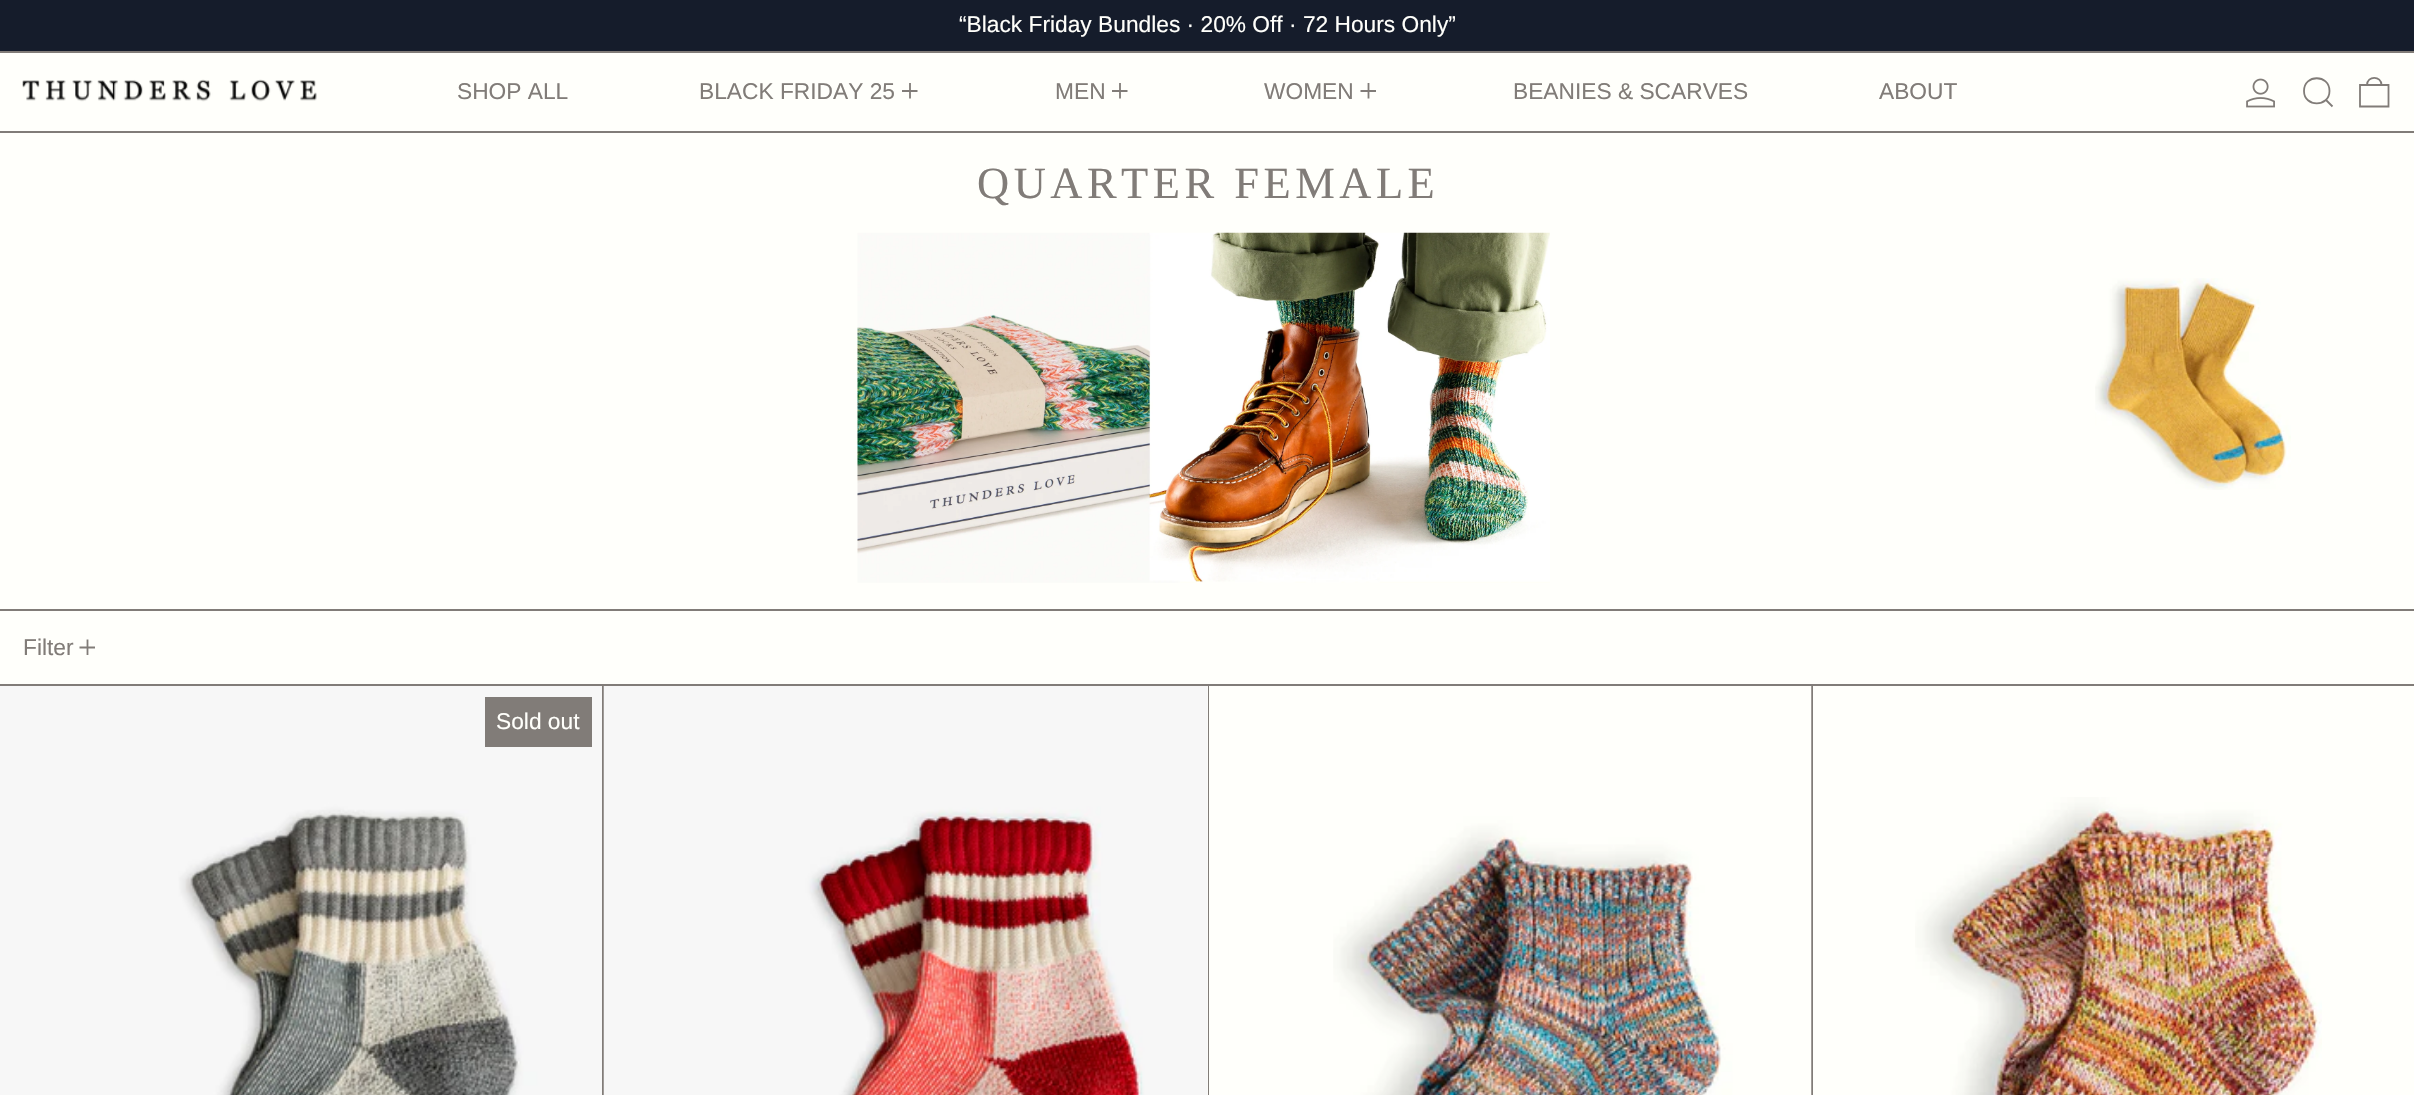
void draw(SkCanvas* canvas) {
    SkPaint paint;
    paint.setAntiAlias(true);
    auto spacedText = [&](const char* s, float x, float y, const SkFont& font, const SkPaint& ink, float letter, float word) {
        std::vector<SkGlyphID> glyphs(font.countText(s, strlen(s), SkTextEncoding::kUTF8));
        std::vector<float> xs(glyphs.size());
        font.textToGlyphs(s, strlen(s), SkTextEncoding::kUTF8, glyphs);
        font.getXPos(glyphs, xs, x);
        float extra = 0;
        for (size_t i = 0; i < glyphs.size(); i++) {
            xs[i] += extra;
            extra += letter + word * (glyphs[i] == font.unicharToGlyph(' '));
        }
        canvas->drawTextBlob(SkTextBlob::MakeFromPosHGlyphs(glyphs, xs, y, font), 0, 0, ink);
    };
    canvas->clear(0xFFFFFFFB);
    paint.setColor(0xFF151C2B);
    canvas->drawRect(SkRect::MakeXYWH(0, 0, 2414, 51), paint);
    paint.setColor(0xFF817C78);
    canvas->drawRect(SkRect::MakeXYWH(0, 51, 2414, 2), paint);
    SkFont font1(fontMgr->matchFamilyStyle("Arimo", SkFontStyle::Normal()), 22.75f);
    font1.setSubpixel(true);
    paint.setColor(0xFFFFFFFB);
    canvas->drawString("“Black Friday Bundles · 20% Off · 72 Hours Only”", 959, 32, font1, paint);
    paint.setColor(0xFF817C78);
    canvas->drawRect(SkRect::MakeXYWH(0, 131, 2414, 2), paint);
    canvas->drawImageRect(SkImages::DeferredFromEncodedData(SkData::MakeFromFileName("img1.png")), SkRect::MakeXYWH(22, 79, 295, 23), SkSamplingOptions());
    canvas->drawString("SHOP ALL", 457, 99, font1, paint);
    canvas->drawString("BLACK FRIDAY 25", 699, 99, font1, paint);
    paint.setStyle(SkPaint::kStroke_Style);
    paint.setStrokeWidth(1.8f);
    canvas->drawPath(SkPathBuilder().moveTo(910, 83).lineTo(910, 98.5f).moveTo(902, 91).lineTo(917.5f, 91).detach(), paint);
    paint.setStyle(SkPaint::kFill_Style);
    canvas->drawString("MEN", 1055, 99, font1, paint);
    paint.setStyle(SkPaint::kStroke_Style);
    canvas->drawPath(SkPathBuilder().moveTo(1120, 83).lineTo(1120, 98.5f).moveTo(1112, 91).lineTo(1127.5f, 91).detach(), paint);
    paint.setStyle(SkPaint::kFill_Style);
    canvas->drawString("WOMEN", 1264, 99, font1, paint);
    paint.setStyle(SkPaint::kStroke_Style);
    canvas->drawPath(SkPathBuilder().moveTo(1368.5f, 83).lineTo(1368.5f, 98.5f).moveTo(1360.5f, 91).lineTo(1376, 91).detach(), paint);
    paint.setStyle(SkPaint::kFill_Style);
    canvas->drawString("BEANIES & SCARVES", 1513, 99, font1, paint);
    canvas->drawString("ABOUT", 1879, 99, font1, paint);
    canvas->drawImageRect(SkImages::DeferredFromEncodedData(SkData::MakeFromFileName("img2.png")), SkRect::MakeXYWH(2246, 78, 29, 30), SkSamplingOptions());
    paint.setStyle(SkPaint::kStroke_Style);
    canvas->drawPath(SkPathBuilder().moveTo(2304, 91).cubicTo(2304, 107.5f, 2329.5f, 107.5f, 2329.5f, 91).cubicTo(2329.5f, 74, 2304, 74, 2304, 91).close().moveTo(2326, 100).lineTo(2332.5f, 106.5f).detach(), paint);
    canvas->drawPath(SkPathBuilder().moveTo(2360, 85).lineTo(2388.5f, 85).lineTo(2388.5f, 106.5f).lineTo(2360, 106.5f).close().moveTo(2381.5f, 85).cubicTo(2381.5f, 75.5f, 2367, 75.5f, 2367, 85).detach(), paint);
    paint.setStyle(SkPaint::kFill_Style);
    canvas->drawRect(SkRect::MakeXYWH(0, 609, 2414, 2), paint);
    SkFont font2(fontMgr->matchFamilyStyle("Liberation Serif", SkFontStyle::Normal()), 44.5f);
    font2.setSubpixel(true);
    spacedText("QUARTER FEMALE", 977, 198, font2, paint, 4.5f, 0);
    canvas->drawImageRect(SkImages::DeferredFromEncodedData(SkData::MakeFromFileName("img3.png")), SkRect::MakeXYWH(857, 232, 693, 351), SkSamplingOptions());
    canvas->drawImageRect(SkImages::DeferredFromEncodedData(SkData::MakeFromFileName("img4.png")), SkRect::MakeXYWH(2095, 278, 196, 212), SkSamplingOptions());
    canvas->drawRect(SkRect::MakeXYWH(0, 684, 2414, 2), paint);
    canvas->drawString("Filter", 23, 655, font1, paint);
    paint.setStyle(SkPaint::kStroke_Style);
    canvas->drawPath(SkPathBuilder().moveTo(87.5f, 639.5f).lineTo(87.5f, 655).moveTo(79.5f, 647.5f).lineTo(95, 647.5f).detach(), paint);
    paint.setStyle(SkPaint::kFill_Style);
    canvas->drawRect(SkRect::MakeXYWH(602, 686, 1211, 409), paint);
    canvas->drawImageRect(SkImages::DeferredFromEncodedData(SkData::MakeFromFileName("img5.png")), SkRect::MakeXYWH(0, 686, 602, 409), SkSamplingOptions());
    canvas->drawRect(SkRect::MakeXYWH(485, 697, 107, 50), paint);
    paint.setColor(0xFFFFFFFB);
    canvas->drawString("Sold out", 496, 729, font1, paint);
    canvas->drawRect(SkRect::MakeXYWH(1207, 686, 1, 409), paint);
    canvas->drawImageRect(SkImages::DeferredFromEncodedData(SkData::MakeFromFileName("img6.png")), SkRect::MakeXYWH(603, 686, 605, 409), SkSamplingOptions());
    canvas->drawRect(SkRect::MakeXYWH(1209, 686, 124, 409), paint);
    canvas->drawImageRect(SkImages::DeferredFromEncodedData(SkData::MakeFromFileName("img7.png")), SkRect::MakeXYWH(1333, 686, 479, 409), SkSamplingOptions());
    canvas->drawImageRect(SkImages::DeferredFromEncodedData(SkData::MakeFromFileName("img8.png")), SkRect::MakeXYWH(1915, 797, 407, 298), SkSamplingOptions());
}
